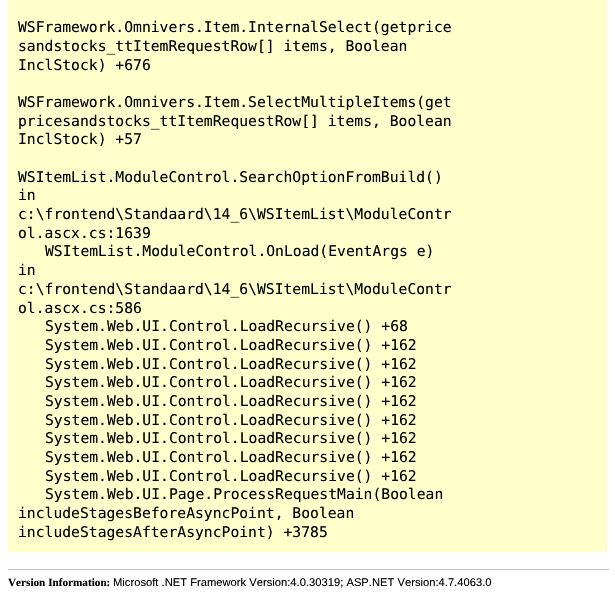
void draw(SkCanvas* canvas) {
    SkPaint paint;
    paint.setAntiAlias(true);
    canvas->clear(0xFFFFFFFF);
    paint.setColor(0xFFFFFFCC);
    canvas->drawRect(SkRect::MakeXYWH(8, 0, 599, 552), paint);
    SkFont font1(fontMgr->matchFamilyStyle("DejaVu Sans Mono", SkFontStyle::Normal()), 14.7f);
    font1.setSubpixel(true);
    paint.setColor(0xFF000000);
    canvas->drawString("WSFramework.Omnivers.Item.InternalSelect(getprice", 18, 32, font1, paint);
    canvas->drawString("sandstocks_ttItemRequestRow[] items, Boolean", 18, 51, font1, paint);
    canvas->drawString("InclStock) +676", 18, 70, font1, paint);
    canvas->drawString("WSFramework.Omnivers.Item.SelectMultipleItems(get", 18, 107, font1, paint);
    canvas->drawString("pricesandstocks_ttItemRequestRow[] items, Boolean", 18, 126, font1, paint);
    canvas->drawString("InclStock) +57", 18, 144, font1, paint);
    canvas->drawString("WSItemList.ModuleControl.SearchOptionFromBuild()", 18, 182, font1, paint);
    canvas->drawString("in", 18, 200, font1, paint);
    canvas->drawString("c:\\frontend\\Standaard\\14_6\\WSItemList\\ModuleContr", 18, 219, font1, paint);
    canvas->drawString("ol.ascx.cs:1639", 18, 238, font1, paint);
    canvas->drawString("WSItemList.ModuleControl.OnLoad(EventArgs e)", 45, 256, font1, paint);
    canvas->drawString("in", 18, 275, font1, paint);
    canvas->drawString("c:\\frontend\\Standaard\\14_6\\WSItemList\\ModuleContr", 18, 294, font1, paint);
    canvas->drawString("ol.ascx.cs:586", 18, 313, font1, paint);
    canvas->drawString("System.Web.UI.Control.LoadRecursive() +68", 45, 331, font1, paint);
    canvas->drawString("System.Web.UI.Control.LoadRecursive() +162", 45, 350, font1, paint);
    canvas->drawString("System.Web.UI.Control.LoadRecursive() +162", 45, 369, font1, paint);
    canvas->drawString("System.Web.UI.Control.LoadRecursive() +162", 45, 387, font1, paint);
    canvas->drawString("System.Web.UI.Control.LoadRecursive() +162", 45, 406, font1, paint);
    canvas->drawString("System.Web.UI.Control.LoadRecursive() +162", 45, 425, font1, paint);
    canvas->drawString("System.Web.UI.Control.LoadRecursive() +162", 45, 443, font1, paint);
    canvas->drawString("System.Web.UI.Control.LoadRecursive() +162", 45, 462, font1, paint);
    canvas->drawString("System.Web.UI.Control.LoadRecursive() +162", 45, 481, font1, paint);
    canvas->drawString("System.Web.UI.Page.ProcessRequestMain(Boolean", 45, 499, font1, paint);
    canvas->drawString("includeStagesBeforeAsyncPoint, Boolean", 18, 518, font1, paint);
    canvas->drawString("includeStagesAfterAsyncPoint) +3785", 18, 537, font1, paint);
    paint.setColor(0xFFC0C0C0);
    canvas->drawRect(SkRect::MakeXYWH(8, 569, 601, 1), paint);
    SkFont font2(fontMgr->matchFamilyStyle("Liberation Serif", SkFontStyle::Bold()), 11.2f);
    font2.setSubpixel(true);
    paint.setColor(0xFF000000);
    canvas->drawString("Version Information:", 8, 586, font2, paint);
    SkFont font3(fontMgr->matchFamilyStyle("Liberation Sans", SkFontStyle::Normal()), 11.2f);
    font3.setSubpixel(true);
    canvas->drawString("Microsoft .NET Framework Version:4.0.30319; ASP.NET Version:4.7.4063.0", 113, 586, font3, paint);
}
